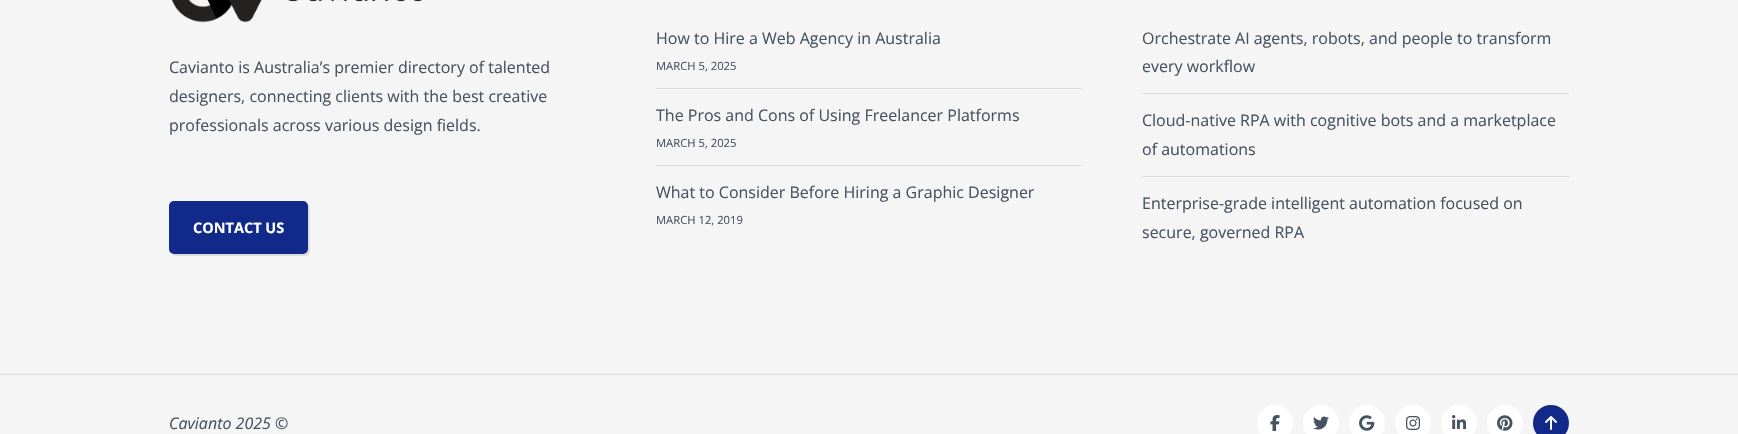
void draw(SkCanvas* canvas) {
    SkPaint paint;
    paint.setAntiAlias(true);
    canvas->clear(0xFFF5F5F5);
    paint.setColor(0xFFDDDDDD);
    canvas->drawRect(SkRect::MakeXYWH(0, 374, 1738, 1), paint);
    canvas->drawImageRect(SkImages::DeferredFromEncodedData(SkData::MakeFromFileName("img1.png")), SkRect::MakeXYWH(171, 0, 251, 23), SkSamplingOptions());
    SkFont font1(fontMgr->matchFamilyStyle("Open Sans", SkFontStyle::Normal()), 16);
    font1.setSubpixel(true);
    paint.setColor(0xFF465362);
    canvas->drawString("Cavianto is Australia’s premier directory of talented", 169, 73, font1, paint);
    canvas->drawString("designers, connecting clients with the best creative", 169, 102, font1, paint);
    canvas->drawString("professionals across various design fields.", 169, 131, font1, paint);
    paint.setColor(0xFFDDDDDD);
    canvas->drawPath(SkPathBuilder().moveTo(172, 254).cubicTo(173, 255, 174, 256, 176, 256).lineTo(305, 256).cubicTo(308, 256, 310, 254, 310, 251).lineTo(310, 208).cubicTo(310, 206, 309, 205, 308, 204).lineTo(308, 206).lineTo(308, 249).cubicTo(308, 252, 306, 254, 303, 254).lineTo(174, 254).close().detach(), paint);
    paint.setColor(0xFF112989);
    canvas->drawRoundRect(SkRect::MakeXYWH(169, 201, 139, 53), 5, 5, paint);
    SkFont font2(fontMgr->matchFamilyStyle("Open Sans", SkFontStyle::Bold()), 14.5f);
    font2.setSubpixel(true);
    paint.setColor(0xFFFFFFFF);
    canvas->drawString("CONTACT US", 193, 233, font2, paint);
    paint.setColor(0xFFDDDDDD);
    canvas->drawRect(SkRect::MakeXYWH(656, 88, 426, 1), paint);
    paint.setColor(0xFF465362);
    canvas->drawString("How to Hire a Web Agency in Australia", 656, 44, font1, paint);
    SkFont font3(fontMgr->matchFamilyStyle("Open Sans", SkFontStyle::Normal()), 11.25f);
    font3.setSubpixel(true);
    canvas->drawString("MARCH 5, 2025", 656, 70, font3, paint);
    paint.setColor(0xFFDDDDDD);
    canvas->drawRect(SkRect::MakeXYWH(656, 165, 426, 1), paint);
    paint.setColor(0xFF465362);
    canvas->drawString("The Pros and Cons of Using Freelancer Platforms", 656, 121, font1, paint);
    canvas->drawString("MARCH 5, 2025", 656, 147, font3, paint);
    canvas->drawString("What to Consider Before Hiring a Graphic Designer", 656, 198, font1, paint);
    canvas->drawString("MARCH 12, 2019", 656, 224, font3, paint);
    paint.setColor(0xFFDDDDDD);
    canvas->drawRect(SkRect::MakeXYWH(1142, 93, 427, 1), paint);
    paint.setColor(0xFF465362);
    canvas->drawString("Orchestrate AI agents, robots, and people to transform", 1142, 44, font1, paint);
    canvas->drawString("every workflow", 1142, 72, font1, paint);
    paint.setColor(0xFFDDDDDD);
    canvas->drawRect(SkRect::MakeXYWH(1142, 176, 427, 1), paint);
    paint.setColor(0xFF465362);
    canvas->drawString("Cloud-native RPA with cognitive bots and a marketplace", 1142, 126, font1, paint);
    canvas->drawString("of automations", 1142, 155, font1, paint);
    canvas->drawString("Enterprise-grade intelligent automation focused on", 1142, 209, font1, paint);
    canvas->drawString("secure, governed RPA", 1142, 238, font1, paint);
    SkFont font4(fontMgr->matchFamilyStyle("Open Sans", SkFontStyle::Italic()), 16);
    font4.setSubpixel(true);
    canvas->drawString("Cavianto 2025 ©", 169, 429, font4, paint);
    paint.setColor(0xFFFFFFFF);
    canvas->drawCircle(1275, 423, 18, paint);
    canvas->drawImageRect(SkImages::DeferredFromEncodedData(SkData::MakeFromFileName("img2.png")), SkRect::MakeXYWH(1270, 415, 10, 16), SkSamplingOptions());
    canvas->drawCircle(1321, 423, 18, paint);
    canvas->drawImageRect(SkImages::DeferredFromEncodedData(SkData::MakeFromFileName("img3.png")), SkRect::MakeXYWH(1313, 416, 16, 14), SkSamplingOptions());
    canvas->drawCircle(1367, 423, 18, paint);
    canvas->drawImageRect(SkImages::DeferredFromEncodedData(SkData::MakeFromFileName("img4.png")), SkRect::MakeXYWH(1359, 415, 16, 16), SkSamplingOptions());
    canvas->drawCircle(1413, 423, 18, paint);
    canvas->drawImageRect(SkImages::DeferredFromEncodedData(SkData::MakeFromFileName("img5.png")), SkRect::MakeXYWH(1406, 416, 14, 14), SkSamplingOptions());
    canvas->drawCircle(1459, 423, 18, paint);
    canvas->drawImageRect(SkImages::DeferredFromEncodedData(SkData::MakeFromFileName("img6.png")), SkRect::MakeXYWH(1452, 415, 14, 14), SkSamplingOptions());
    canvas->drawCircle(1505, 423, 18, paint);
    canvas->drawImageRect(SkImages::DeferredFromEncodedData(SkData::MakeFromFileName("img7.png")), SkRect::MakeXYWH(1497, 415, 16, 16), SkSamplingOptions());
    paint.setColor(0xFF112989);
    canvas->drawCircle(1551, 423, 18, paint);
    canvas->drawImageRect(SkImages::DeferredFromEncodedData(SkData::MakeFromFileName("img8.png")), SkRect::MakeXYWH(1545, 416, 12, 14), SkSamplingOptions());
}
